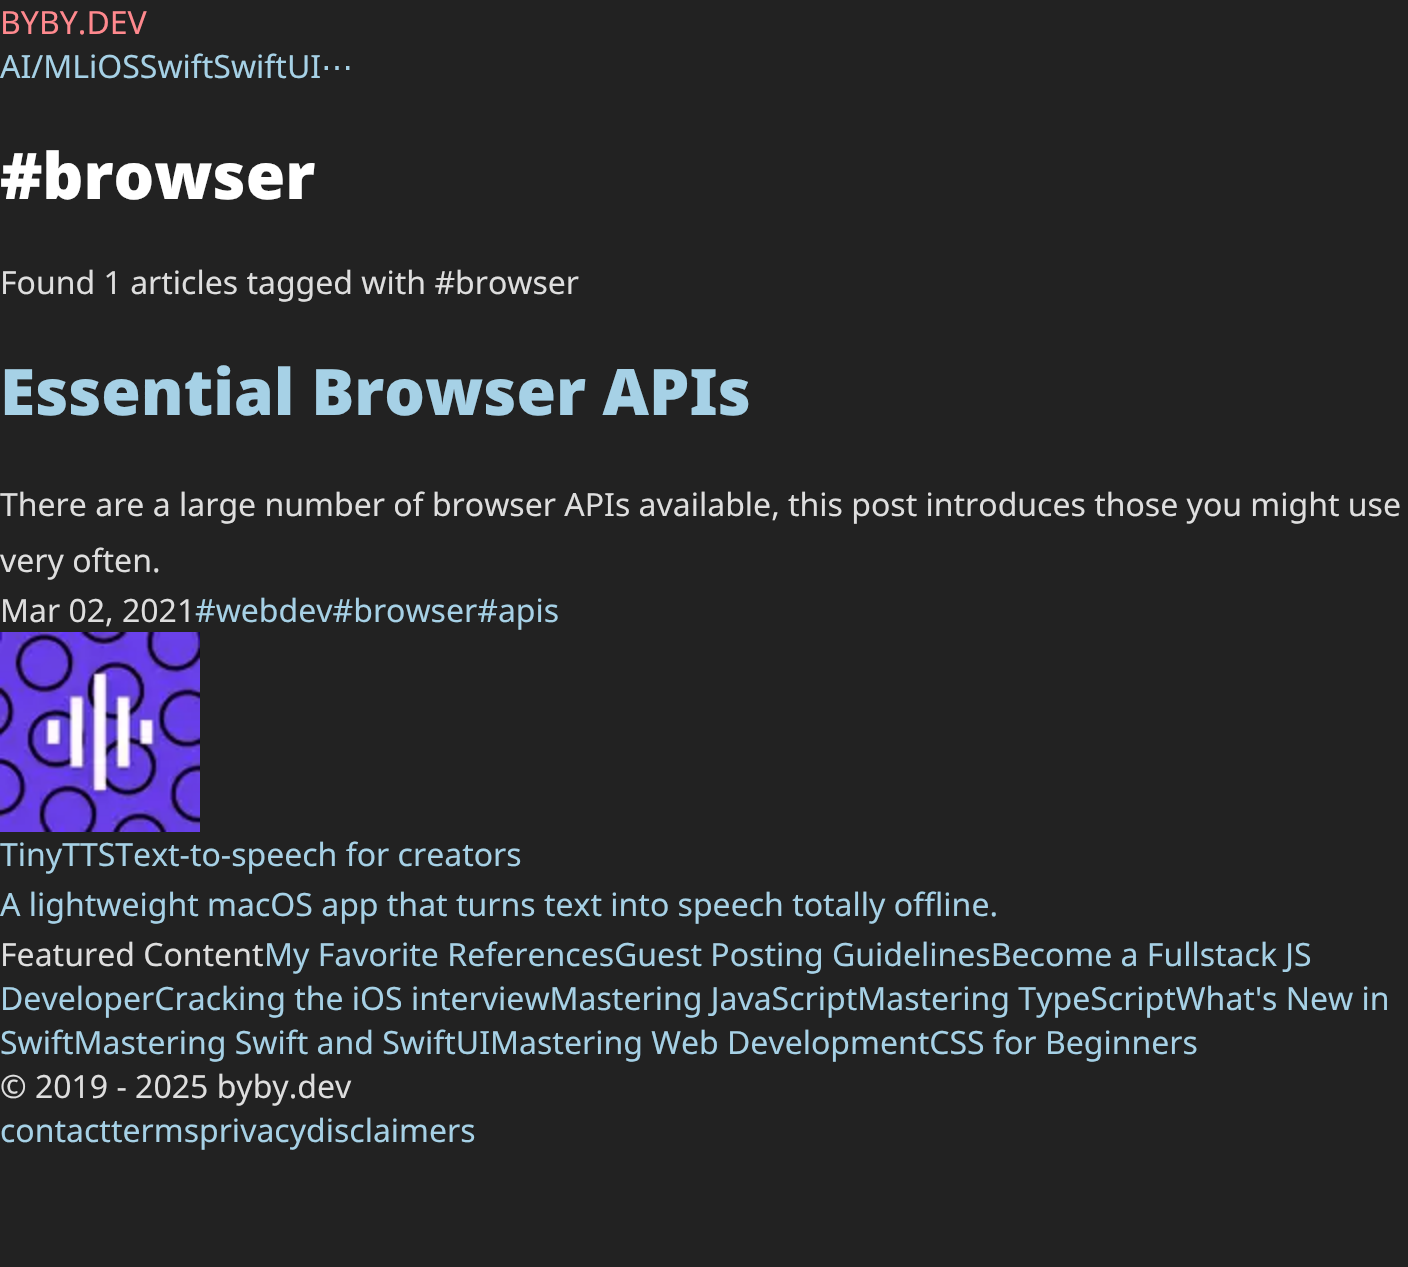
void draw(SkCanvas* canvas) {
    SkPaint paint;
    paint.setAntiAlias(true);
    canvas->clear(0xFF222222);
    SkFont font1(fontMgr->matchFamilyStyle("Noto Sans", SkFontStyle::Normal()), 32);
    font1.setSubpixel(true);
    paint.setColor(0xFFFF898E);
    canvas->drawString("BYBY.DEV", 0, 34, font1, paint);
    paint.setColor(0xFFA6D1E6);
    canvas->drawString("AI/MLiOSSwiftSwiftUI", 0, 78, font1, paint);
    SkFont font2(fontMgr->matchFamilyStyle("DejaVu Sans", SkFontStyle::Normal()), 32);
    font2.setSubpixel(true);
    canvas->drawString("⋯", 321, 78, font2, paint);
    SkFont font3(fontMgr->matchFamilyStyle("Noto Sans", SkFontStyle(900, SkFontStyle::kNormal_Width, SkFontStyle::kUpright_Slant)), 64);
    font3.setSubpixel(true);
    paint.setColor(0xFFFFFFFF);
    canvas->drawString("#browser", 0, 199, font3, paint);
    paint.setColor(0xFFDEDEDE);
    canvas->drawString("Found 1 articles tagged with #browser", 0, 294, font1, paint);
    paint.setColor(0xFFA6D1E6);
    canvas->drawString("Essential Browser APIs", 0, 415, font3, paint);
    paint.setColor(0xFFDEDEDE);
    canvas->drawString("There are a large number of browser APIs available, this post introduces those you might use", 0, 516, font1, paint);
    canvas->drawString("very often.", 0, 572, font1, paint);
    canvas->drawString("Mar 02, 2021", 0, 622, font1, paint);
    paint.setColor(0xFFA6D1E6);
    canvas->drawString("#webdev#browser#apis", 195, 622, font1, paint);
    canvas->drawImageRect(SkImages::DeferredFromEncodedData(SkData::MakeFromFileName("img1.png")), SkRect::MakeXYWH(0, 632, 200, 200), SkSamplingOptions());
    canvas->drawString("TinyTTSText-to-speech for creators", 0, 866, font1, paint);
    canvas->drawString("A lightweight macOS app that turns text into speech totally offline.", 0, 916, font1, paint);
    paint.setColor(0xFFDEDEDE);
    canvas->drawString("Featured Content", 0, 966, font1, paint);
    paint.setColor(0xFFA6D1E6);
    canvas->drawString("My Favorite ReferencesGuest Posting GuidelinesBecome a Fullstack JS", 264, 966, font1, paint);
    canvas->drawString("DeveloperCracking the iOS interviewMastering JavaScriptMastering TypeScriptWhat's New in", 0, 1010, font1, paint);
    canvas->drawString("SwiftMastering Swift and SwiftUIMastering Web DevelopmentCSS for Beginners", 0, 1054, font1, paint);
    paint.setColor(0xFFDEDEDE);
    canvas->drawString("© 2019 - 2025 byby.dev", 0, 1098, font1, paint);
    paint.setColor(0xFFA6D1E6);
    canvas->drawString("contacttermsprivacydisclaimers", 0, 1142, font1, paint);
}
